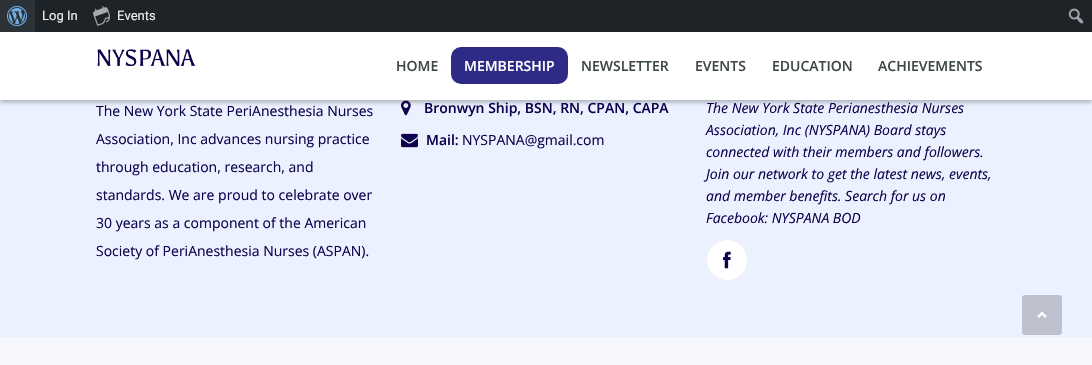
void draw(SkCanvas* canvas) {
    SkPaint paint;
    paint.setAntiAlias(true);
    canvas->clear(0xFFECF1FF);
    paint.setColor(0xFFFFFFFF);
    canvas->drawRect(SkRect::MakeXYWH(0, 32, 1092, 68), paint);
    canvas->drawImageRect(SkImages::DeferredFromEncodedData(SkData::MakeFromFileName("img5.png")), SkRect::MakeXYWH(401, 100, 10, 16), SkSamplingOptions());
    canvas->save();
    canvas->clipRect(SkRect::MakeXYWH(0, 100, 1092, 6));
    paint.setColor(0x4D000000);
    paint.setMaskFilter(SkMaskFilter::MakeBlur(kNormal_SkBlurStyle, 2.5f));
    canvas->drawRect(SkRect::MakeXYWH(0, 34, 1092, 68), paint);
    paint.setMaskFilter(nullptr);
    canvas->restore();
    paint.setColor(0xFF1D2327);
    canvas->drawRect(SkRect::MakeXYWH(35, 0, 1057, 32), paint);
    paint.setColor(0xFF2C3338);
    canvas->drawRect(SkRect::MakeXYWH(0, 0, 35, 32), paint);
    canvas->drawImageRect(SkImages::DeferredFromEncodedData(SkData::MakeFromFileName("img1.png")), SkRect::MakeXYWH(7, 6, 20, 20), SkSamplingOptions());
    SkFont font1(fontMgr->matchFamilyStyle("Roboto", SkFontStyle::Normal()), 13);
    font1.setSubpixel(true);
    paint.setColor(0xFFF0F0F1);
    canvas->drawString("Log In", 42, 20, font1, paint);
    canvas->drawImageRect(SkImages::DeferredFromEncodedData(SkData::MakeFromFileName("img2.png")), SkRect::MakeXYWH(93, 6, 17, 20), SkSamplingOptions());
    canvas->drawString("Events", 117, 20, font1, paint);
    canvas->drawImageRect(SkImages::DeferredFromEncodedData(SkData::MakeFromFileName("img3.png")), SkRect::MakeXYWH(1068, 8, 16, 16), SkSamplingOptions());
    canvas->drawImageRect(SkImages::DeferredFromEncodedData(SkData::MakeFromFileName("img4.png")), SkRect::MakeXYWH(97, 49, 99, 17), SkSamplingOptions());
    SkFont font2(fontMgr->matchFamilyStyle("Open Sans", SkFontStyle(600, SkFontStyle::kNormal_Width, SkFontStyle::kUpright_Slant)), 14);
    font2.setSubpixel(true);
    paint.setColor(0xFF3F4944);
    canvas->drawString("HOME", 396, 71, font2, paint);
    paint.setColor(0xFF2E2B86);
    canvas->drawRoundRect(SkRect::MakeXYWH(451, 47, 117, 37), 10, 10, paint);
    paint.setColor(0xFFFFFFFF);
    canvas->drawString("MEMBERSHIP", 464, 71, font2, paint);
    paint.setColor(0xFF3F4944);
    canvas->drawString("NEWSLETTER", 581, 71, font2, paint);
    canvas->drawString("EVENTS", 695, 71, font2, paint);
    canvas->drawString("EDUCATION", 772, 71, font2, paint);
    canvas->drawString("ACHIEVEMENTS", 878, 71, font2, paint);
    SkFont font3(fontMgr->matchFamilyStyle("Open Sans", SkFontStyle::Normal()), 14);
    font3.setSubpixel(true);
    paint.setColor(0xFF0E024D);
    canvas->drawString("The New York State PeriAnesthesia Nurses", 96, 116, font3, paint);
    canvas->drawString("Association, Inc advances nursing practice", 96, 144, font3, paint);
    canvas->drawString("through education, research, and", 96, 172, font3, paint);
    canvas->drawString("standards. We are proud to celebrate over", 96, 200, font3, paint);
    canvas->drawString("30 years as a component of the American", 96, 228, font3, paint);
    canvas->drawString("Society of PeriAnesthesia Nurses (ASPAN).", 96, 256, font3, paint);
    canvas->drawString("Bronwyn Ship, BSN, RN, CPAN, CAPA", 424, 113, font2, paint);
    canvas->drawImageRect(SkImages::DeferredFromEncodedData(SkData::MakeFromFileName("img6.png")), SkRect::MakeXYWH(401, 133, 17, 15), SkSamplingOptions());
    canvas->drawString("Mail:", 426, 145, font2, paint);
    canvas->drawString("NYSPANA@gmail.com", 462, 145, font3, paint);
    SkFont font4(fontMgr->matchFamilyStyle("Open Sans", SkFontStyle::Italic()), 14);
    font4.setSubpixel(true);
    canvas->drawString("The New York State Perianesthesia Nurses", 706, 113, font4, paint);
    canvas->drawString("Association, Inc (NYSPANA) Board stays", 706, 135, font4, paint);
    canvas->drawString("connected with their members and followers.", 706, 157, font4, paint);
    canvas->drawString("Join our network to get the latest news, events,", 706, 179, font4, paint);
    canvas->drawString("and member benefits. Search for us on", 706, 201, font4, paint);
    canvas->drawString("Facebook: NYSPANA BOD", 706, 223, font4, paint);
    paint.setStyle(SkPaint::kStroke_Style);
    paint.setStrokeWidth(1);
    paint.setColor(0xFFF2F1F2);
    canvas->drawCircle(727, 260, 20.5f, paint);
    canvas->save();
    canvas->clipPath(SkPathBuilder().moveTo(727, 240).cubicTo(738, 240, 747, 249, 747, 260).cubicTo(747, 271, 738, 280, 727, 280).cubicTo(716, 280, 707, 271, 707, 260).cubicTo(707, 249, 716, 240, 727, 240).close().detach(), true);
    paint.setStyle(SkPaint::kFill_Style);
    paint.setColor(0xFFFFFFFF);
    canvas->drawRoundRect(SkRect::MakeXYWH(707, 240, 40, 42), 20, 20, paint);
    canvas->restore();
    canvas->drawImageRect(SkImages::DeferredFromEncodedData(SkData::MakeFromFileName("img7.png")), SkRect::MakeXYWH(723, 251, 8, 18), SkSamplingOptions());
    paint.setColor(0xFFF5F7FD);
    canvas->drawRect(SkRect::MakeXYWH(0, 337, 1092, 28), paint);
    canvas->drawImageRect(SkImages::DeferredFromEncodedData(SkData::MakeFromFileName("img8.png")), SkRect::MakeXYWH(1022, 295, 40, 40), SkSamplingOptions());
}
